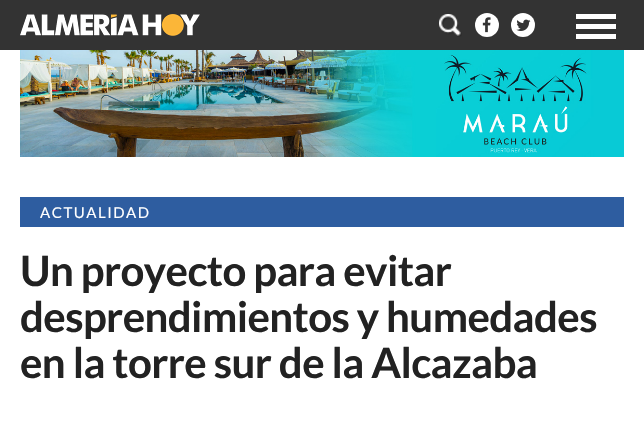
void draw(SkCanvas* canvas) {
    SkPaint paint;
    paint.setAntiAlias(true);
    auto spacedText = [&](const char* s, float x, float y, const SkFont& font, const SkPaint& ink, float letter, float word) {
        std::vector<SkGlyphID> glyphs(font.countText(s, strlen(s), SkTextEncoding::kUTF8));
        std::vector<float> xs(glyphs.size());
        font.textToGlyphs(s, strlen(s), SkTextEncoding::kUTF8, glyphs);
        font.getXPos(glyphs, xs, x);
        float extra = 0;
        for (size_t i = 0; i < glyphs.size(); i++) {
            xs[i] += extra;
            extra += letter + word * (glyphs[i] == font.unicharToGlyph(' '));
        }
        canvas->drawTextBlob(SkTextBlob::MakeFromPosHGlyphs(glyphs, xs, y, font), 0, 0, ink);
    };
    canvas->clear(0xFFFFFFFF);
    paint.setColor(0xFF333333);
    canvas->drawRect(SkRect::MakeXYWH(0, 0, 644, 50), paint);
    canvas->drawImageRect(SkImages::DeferredFromEncodedData(SkData::MakeFromFileName("img1.png")), SkRect::MakeXYWH(20, 14, 180, 22), SkSamplingOptions());
    canvas->drawImageRect(SkImages::DeferredFromEncodedData(SkData::MakeFromFileName("img2.png")), SkRect::MakeXYWH(439, 14, 23, 23), SkSamplingOptions());
    paint.setColor(0xFFFFFFFF);
    canvas->drawCircle(487, 25, 12, paint);
    canvas->drawImageRect(SkImages::DeferredFromEncodedData(SkData::MakeFromFileName("img3.png")), SkRect::MakeXYWH(482, 17, 9, 16), SkSamplingOptions());
    canvas->drawCircle(523, 25, 12, paint);
    canvas->drawImageRect(SkImages::DeferredFromEncodedData(SkData::MakeFromFileName("img4.png")), SkRect::MakeXYWH(516, 19, 15, 12), SkSamplingOptions());
    canvas->drawRect(SkRect::MakeXYWH(576, 14, 40, 5), paint);
    canvas->drawRect(SkRect::MakeXYWH(576, 24, 40, 5), paint);
    canvas->drawRect(SkRect::MakeXYWH(576, 34, 40, 5), paint);
    canvas->drawImageRect(SkImages::DeferredFromEncodedData(SkData::MakeFromFileName("img5.png")), SkRect::MakeXYWH(20, 50, 604, 107), SkSamplingOptions());
    paint.setColor(0xFF2E5DA0);
    canvas->drawRect(SkRect::MakeXYWH(20, 197, 604, 30), paint);
    SkFont font1(fontMgr->matchFamilyStyle("Lato", SkFontStyle::Normal()), 15);
    font1.setSubpixel(true);
    paint.setColor(0xFFFFFFFF);
    spacedText("ACTUALIDAD", 40, 218, font1, paint, 1.5f, 0);
    SkFont font2(fontMgr->matchFamilyStyle("Lato", SkFontStyle::Bold()), 42);
    font2.setSubpixel(true);
    paint.setColor(0xFF222222);
    spacedText("Un proyecto para evitar", 20, 286, font2, paint, -0.6f, 0);
    spacedText("desprendimientos y humedades", 20, 332, font2, paint, -0.6f, 0);
    spacedText("en la torre sur de la Alcazaba", 20, 378, font2, paint, -0.6f, 0);
}
